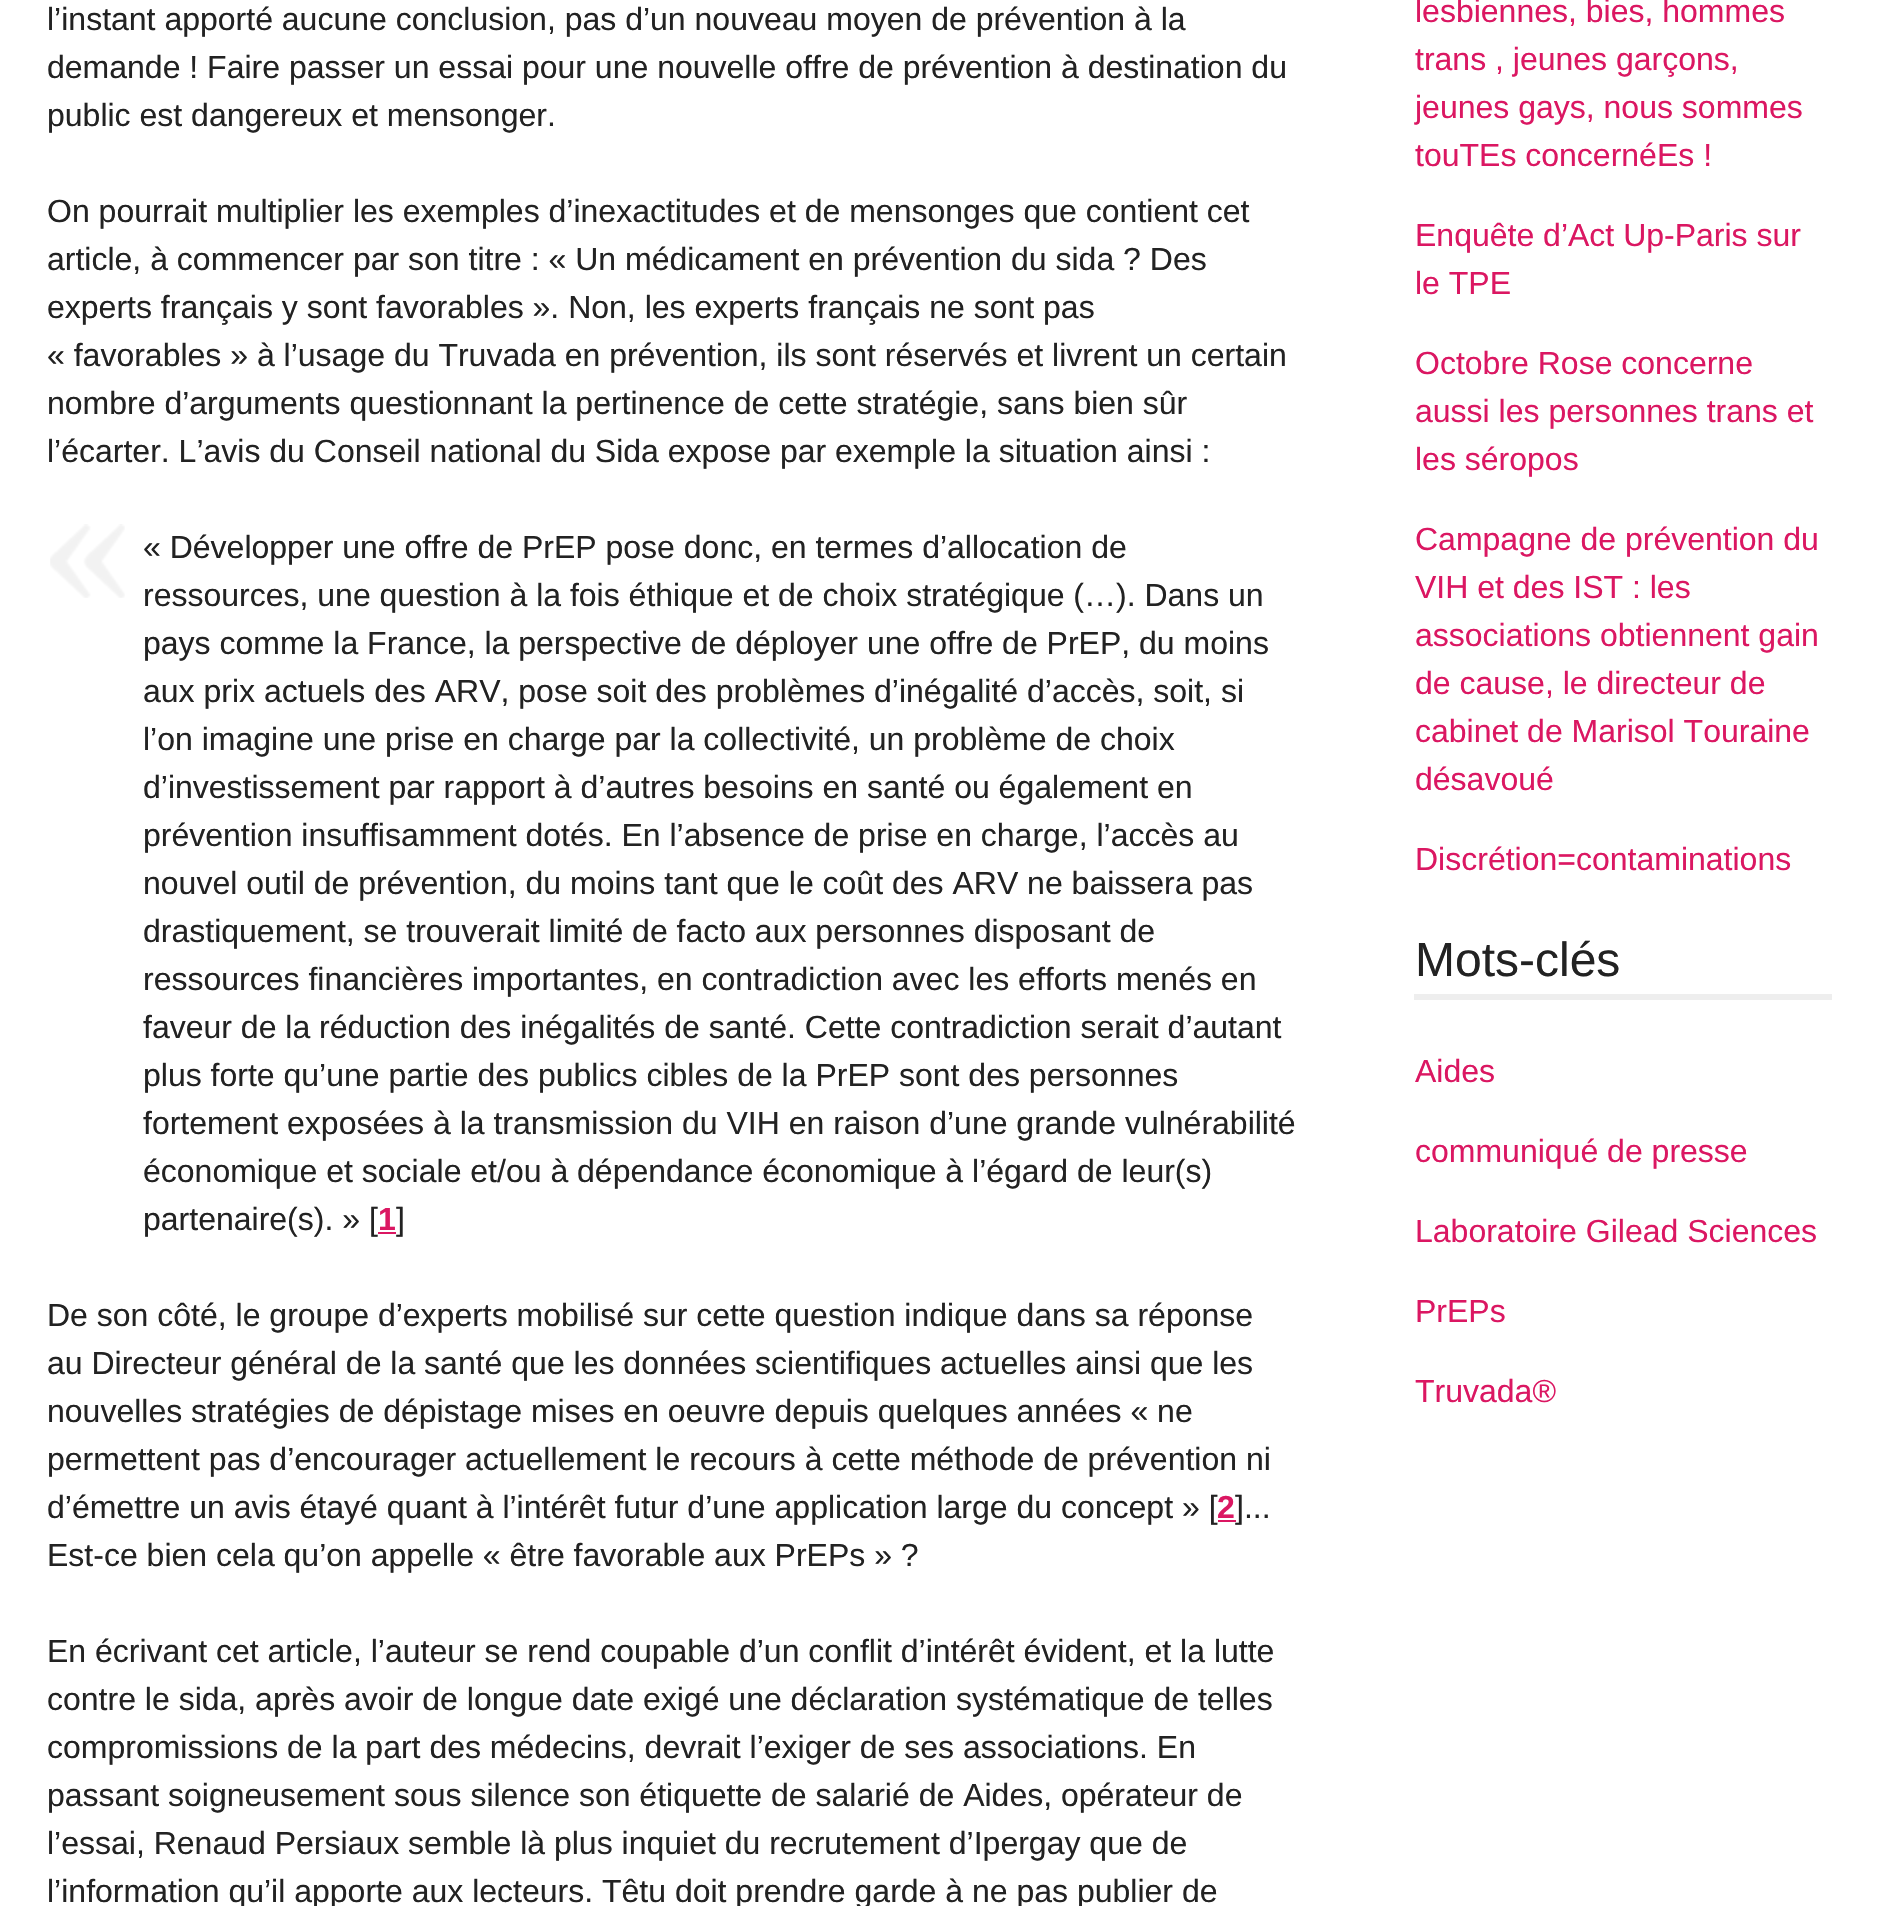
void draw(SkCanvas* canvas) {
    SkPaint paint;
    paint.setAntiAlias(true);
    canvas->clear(0xFFFFFFFF);
    SkFont font1(fontMgr->matchFamilyStyle("Liberation Sans", SkFontStyle::Normal()), 32);
    font1.setSubpixel(true);
    paint.setColor(0xFF222222);
    canvas->drawString("l’instant apporté aucune conclusion, pas d’un nouveau moyen de prévention à la", 47, 30, font1, paint);
    canvas->drawString("demande ! Faire passer un essai pour une nouvelle offre de prévention à destination du", 47, 78, font1, paint);
    canvas->drawString("public est dangereux et mensonger.", 47, 126, font1, paint);
    canvas->drawString("On pourrait multiplier les exemples d’inexactitudes et de mensonges que contient cet", 47, 222, font1, paint);
    canvas->drawString("article, à commencer par son titre : « Un médicament en prévention du sida ? Des", 47, 270, font1, paint);
    canvas->drawString("experts français y sont favorables ». Non, les experts français ne sont pas", 47, 318, font1, paint);
    canvas->drawString("« favorables » à l’usage du Truvada en prévention, ils sont réservés et livrent un certain", 47, 366, font1, paint);
    canvas->drawString("nombre d’arguments questionnant la pertinence de cette stratégie, sans bien sûr", 47, 414, font1, paint);
    canvas->drawString("l’écarter. L’avis du Conseil national du Sida expose par exemple la situation ainsi :", 47, 462, font1, paint);
    canvas->drawImageRect(SkImages::DeferredFromEncodedData(SkData::MakeFromFileName("img1.png")), SkRect::MakeXYWH(50, 524, 75, 74), SkSamplingOptions());
    canvas->drawString("« Développer une offre de PrEP pose donc, en termes d’allocation de", 143, 558, font1, paint);
    canvas->drawString("ressources, une question à la fois éthique et de choix stratégique (…). Dans un", 143, 606, font1, paint);
    canvas->drawString("pays comme la France, la perspective de déployer une offre de PrEP, du moins", 143, 654, font1, paint);
    canvas->drawString("aux prix actuels des ARV, pose soit des problèmes d’inégalité d’accès, soit, si", 143, 702, font1, paint);
    canvas->drawString("l’on imagine une prise en charge par la collectivité, un problème de choix", 143, 750, font1, paint);
    canvas->drawString("d’investissement par rapport à d’autres besoins en santé ou également en", 143, 798, font1, paint);
    canvas->drawString("prévention insuffisamment dotés. En l’absence de prise en charge, l’accès au", 143, 846, font1, paint);
    canvas->drawString("nouvel outil de prévention, du moins tant que le coût des ARV ne baissera pas", 143, 894, font1, paint);
    canvas->drawString("drastiquement, se trouverait limité de facto aux personnes disposant de", 143, 942, font1, paint);
    canvas->drawString("ressources financières importantes, en contradiction avec les efforts menés en", 143, 990, font1, paint);
    canvas->drawString("faveur de la réduction des inégalités de santé. Cette contradiction serait d’autant", 143, 1038, font1, paint);
    canvas->drawString("plus forte qu’une partie des publics cibles de la PrEP sont des personnes", 143, 1086, font1, paint);
    canvas->drawString("fortement exposées à la transmission du VIH en raison d’une grande vulnérabilité", 143, 1134, font1, paint);
    canvas->drawString("économique et sociale et/ou à dépendance économique à l’égard de leur(s)", 143, 1182, font1, paint);
    canvas->drawString("partenaire(s). » [", 143, 1230, font1, paint);
    SkFont font2(fontMgr->matchFamilyStyle("Liberation Sans", SkFontStyle::Bold()), 32);
    font2.setSubpixel(true);
    paint.setColor(0xFFDB1762);
    canvas->drawString("1", 378, 1230, font2, paint);
    canvas->drawRect(SkRect::MakeXYWH(378, 1232, 18, 2), paint);
    paint.setColor(0xFF222222);
    canvas->drawString("]", 396, 1230, font1, paint);
    canvas->drawString("De son côté, le groupe d’experts mobilisé sur cette question indique dans sa réponse", 47, 1326, font1, paint);
    canvas->drawString("au Directeur général de la santé que les données scientifiques actuelles ainsi que les", 47, 1374, font1, paint);
    canvas->drawString("nouvelles stratégies de dépistage mises en oeuvre depuis quelques années « ne", 47, 1422, font1, paint);
    canvas->drawString("permettent pas d’encourager actuellement le recours à cette méthode de prévention ni", 47, 1470, font1, paint);
    canvas->drawString("d’émettre un avis étayé quant à l’intérêt futur d’une application large du concept » [", 47, 1518, font1, paint);
    paint.setColor(0xFFDB1762);
    canvas->drawString("2", 1217, 1518, font2, paint);
    canvas->drawRect(SkRect::MakeXYWH(1218, 1520, 18, 2), paint);
    paint.setColor(0xFF222222);
    canvas->drawString("]...", 1235, 1518, font1, paint);
    canvas->drawString("Est-ce bien cela qu’on appelle « être favorable aux PrEPs » ?", 47, 1566, font1, paint);
    canvas->drawString("En écrivant cet article, l’auteur se rend coupable d’un conflit d’intérêt évident, et la lutte", 47, 1662, font1, paint);
    canvas->drawString("contre le sida, après avoir de longue date exigé une déclaration systématique de telles", 47, 1710, font1, paint);
    canvas->drawString("compromissions de la part des médecins, devrait l’exiger de ses associations. En", 47, 1758, font1, paint);
    canvas->drawString("passant soigneusement sous silence son étiquette de salarié de Aides, opérateur de", 47, 1806, font1, paint);
    canvas->drawString("l’essai, Renaud Persiaux semble là plus inquiet du recrutement d’Ipergay que de", 47, 1854, font1, paint);
    canvas->drawString("l’information qu’il apporte aux lecteurs. Têtu doit prendre garde à ne pas publier de", 47, 1902, font1, paint);
    paint.setColor(0xFFDB1762);
    canvas->drawString("lesbiennes, bies, hommes", 1415, 22, font1, paint);
    canvas->drawString("trans , jeunes garçons,", 1415, 70, font1, paint);
    canvas->drawString("jeunes gays, nous sommes", 1415, 118, font1, paint);
    canvas->drawString("touTEs concernéEs !", 1415, 166, font1, paint);
    canvas->drawString("Enquête d’Act Up-Paris sur", 1415, 246, font1, paint);
    canvas->drawString("le TPE", 1415, 294, font1, paint);
    canvas->drawString("Octobre Rose concerne", 1415, 374, font1, paint);
    canvas->drawString("aussi les personnes trans et", 1415, 422, font1, paint);
    canvas->drawString("les séropos", 1415, 470, font1, paint);
    canvas->drawString("Campagne de prévention du", 1415, 550, font1, paint);
    canvas->drawString("VIH et des IST : les", 1415, 598, font1, paint);
    canvas->drawString("associations obtiennent gain", 1415, 646, font1, paint);
    canvas->drawString("de cause, le directeur de", 1415, 694, font1, paint);
    canvas->drawString("cabinet de Marisol Touraine", 1415, 742, font1, paint);
    canvas->drawString("désavoué", 1415, 790, font1, paint);
    canvas->drawString("Discrétion=contaminations", 1415, 870, font1, paint);
    paint.setColor(0xFFEEEEEE);
    canvas->drawRect(SkRect::MakeXYWH(1414, 994, 418, 6), paint);
    SkFont font3(fontMgr->matchFamilyStyle("Liberation Sans", SkFontStyle::Normal()), 48);
    font3.setSubpixel(true);
    paint.setColor(0xFF222222);
    canvas->drawString("Mots-clés", 1415, 976, font3, paint);
    paint.setColor(0xFFDB1762);
    canvas->drawString("Aides", 1415, 1082, font1, paint);
    canvas->drawString("communiqué de presse", 1415, 1162, font1, paint);
    canvas->drawString("Laboratoire Gilead Sciences", 1415, 1242, font1, paint);
    canvas->drawString("PrEPs", 1415, 1322, font1, paint);
    canvas->drawString("Truvada®", 1415, 1402, font1, paint);
}
